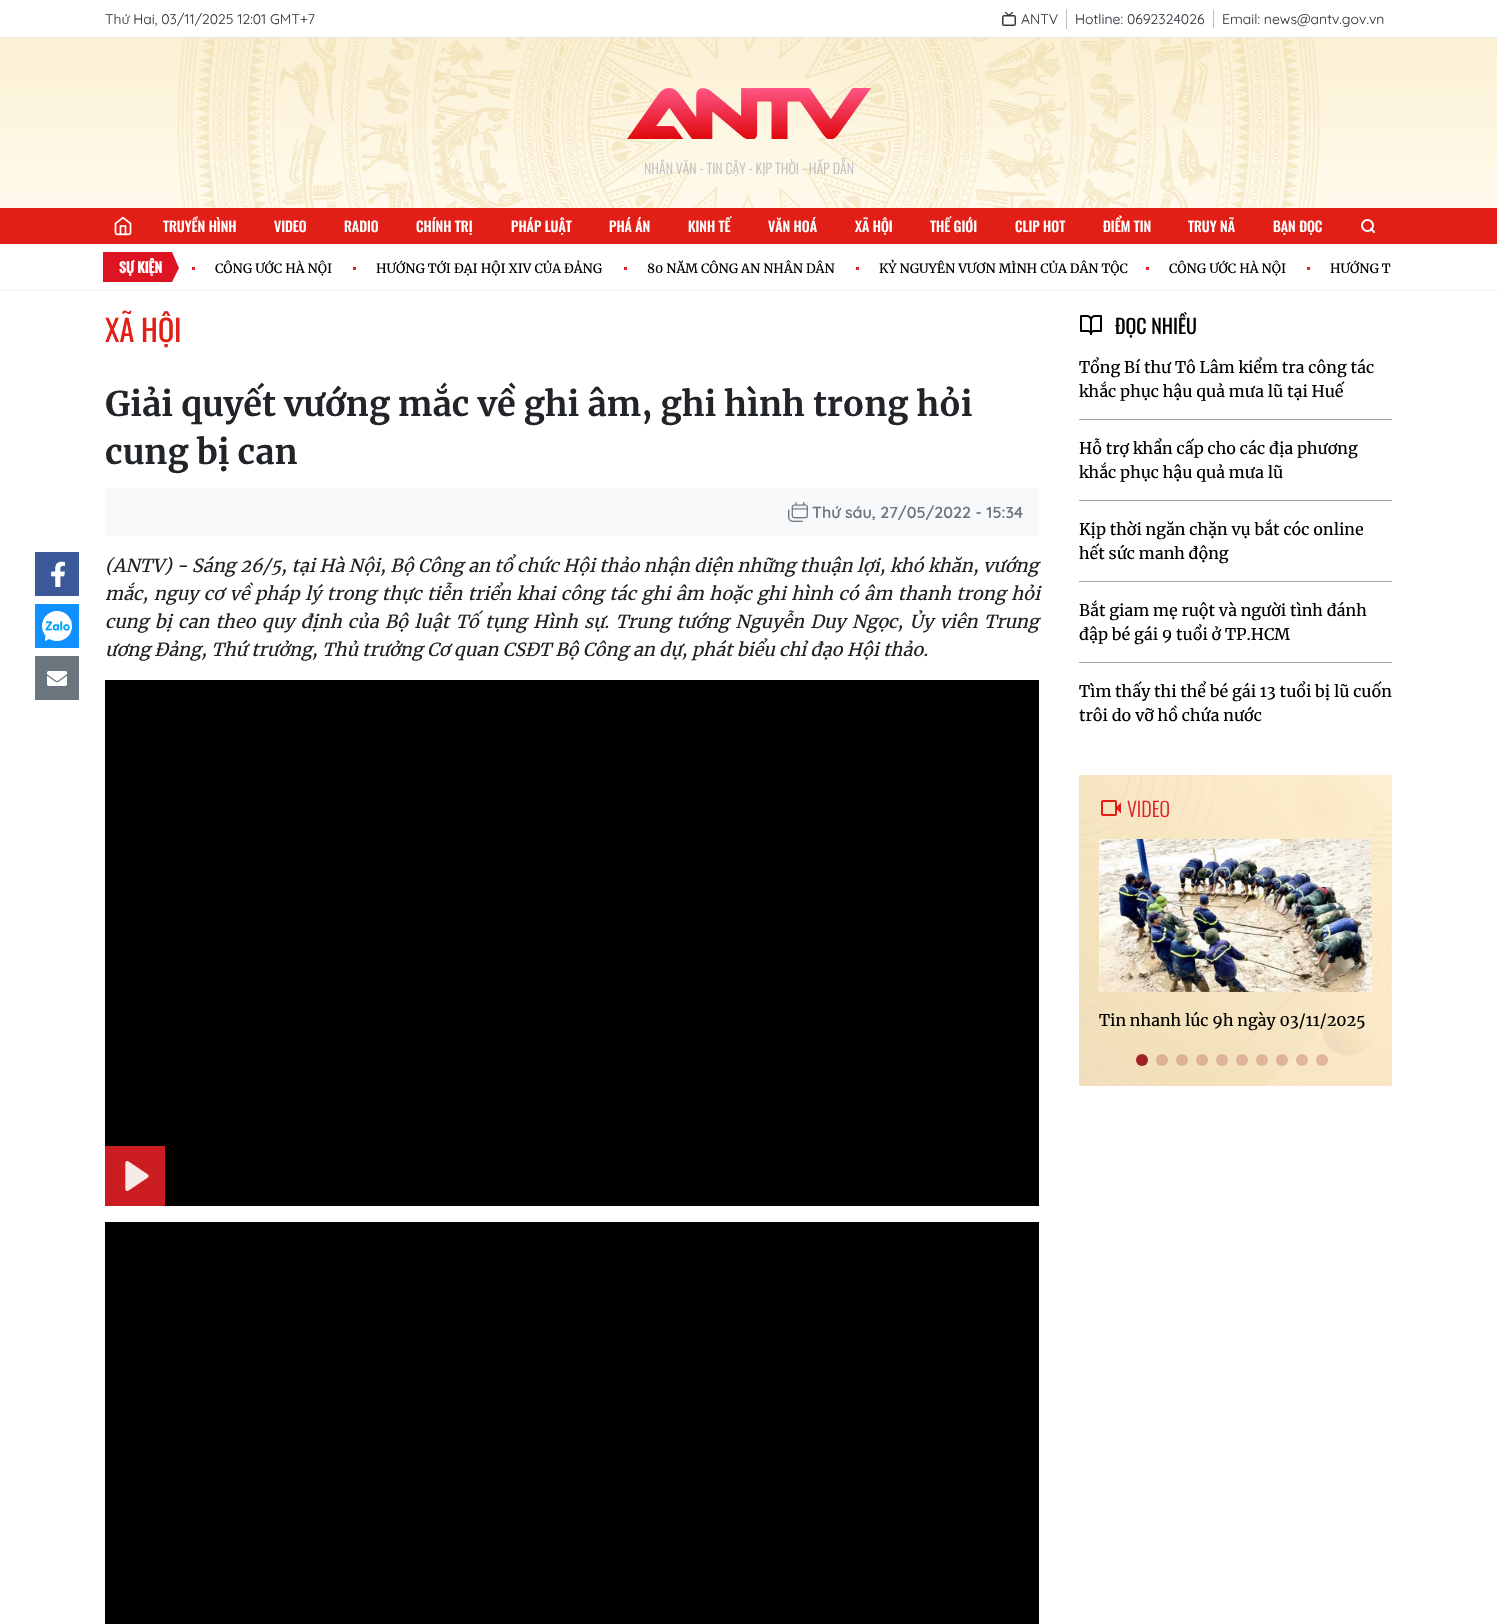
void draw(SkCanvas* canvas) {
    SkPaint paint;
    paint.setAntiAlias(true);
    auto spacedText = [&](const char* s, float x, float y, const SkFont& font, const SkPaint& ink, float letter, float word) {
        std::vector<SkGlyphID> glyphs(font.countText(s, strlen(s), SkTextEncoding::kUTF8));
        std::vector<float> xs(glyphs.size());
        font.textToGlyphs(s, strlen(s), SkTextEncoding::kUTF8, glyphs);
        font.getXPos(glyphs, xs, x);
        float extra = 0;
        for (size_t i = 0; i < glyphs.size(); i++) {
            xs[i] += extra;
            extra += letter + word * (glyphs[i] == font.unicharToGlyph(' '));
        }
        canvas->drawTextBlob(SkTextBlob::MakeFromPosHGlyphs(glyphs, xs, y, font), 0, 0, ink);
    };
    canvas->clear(0xFFFFFFFF);
    paint.setColor(0xFFE5E7EB);
    canvas->drawRect(SkRect::MakeXYWH(0, 37, 1497, 1), paint);
    SkFont font1(fontMgr->matchFamilyStyle("Quicksand", SkFontStyle::Normal()), 14);
    font1.setSubpixel(true);
    paint.setColor(0xFF343A40);
    canvas->drawString("Thứ Hai, 03/11/2025 12:01 GMT+7", 105, 24, font1, paint);
    paint.setColor(0xFFBFC0BD);
    canvas->drawRect(SkRect::MakeXYWH(1066, 9, 1, 20), paint);
    paint.setStyle(SkPaint::kStroke_Style);
    paint.setStrokeWidth(1.5f);
    paint.setColor(0xFF343A40);
    canvas->drawRoundRect(SkRect::MakeXYWH(1002.75f, 15.75f, 12.5f, 9.5f), 1.25f, 1.25f, paint);
    paint.setStrokeWidth(1.3f);
    paint.setStrokeCap(SkPaint::kRound_Cap);
    paint.setStrokeJoin(SkPaint::kRound_Join);
    canvas->drawPath(SkPathBuilder().moveTo(1012.5f, 12.5f).lineTo(1009, 15.5f).lineTo(1005.5f, 12.5f).detach(), paint);
    paint.setStyle(SkPaint::kFill_Style);
    canvas->drawString("ANTV", 1021, 24, font1, paint);
    canvas->drawString("Hotline: 0692324026", 1075, 24, font1, paint);
    paint.setColor(0xFFBFC0BD);
    canvas->drawRect(SkRect::MakeXYWH(1213, 10, 1, 18), paint);
    paint.setColor(0xFF343A40);
    canvas->drawString("Email: news@antv.gov.vn", 1222, 24, font1, paint);
    canvas->drawImageRect(SkImages::DeferredFromEncodedData(SkData::MakeFromFileName("img1.png")), SkRect::MakeXYWH(0, 38, 1497, 170), SkSamplingOptions());
    canvas->drawImageRect(SkImages::DeferredFromEncodedData(SkData::MakeFromFileName("img2.png")), SkRect::MakeXYWH(627, 88, 244, 51), SkSamplingOptions());
    SkFont font2(fontMgr->matchFamilyStyle("Oswald", SkFontStyle(300, SkFontStyle::kNormal_Width, SkFontStyle::kUpright_Slant)), 14);
    font2.setSubpixel(true);
    paint.setColor(0xFFBFC0BD);
    canvas->drawString("NHÂN VĂN - TIN CẬY - KỊP THỜI - HẤP DẪN", 644, 174, font2, paint);
    paint.setColor(0xFFE21F16);
    canvas->drawRect(SkRect::MakeXYWH(0, 208, 1497, 36), paint);
    canvas->drawImageRect(SkImages::DeferredFromEncodedData(SkData::MakeFromFileName("img3.png")), SkRect::MakeXYWH(114, 216, 18, 20), SkSamplingOptions());
    SkFont font3(fontMgr->matchFamilyStyle("Oswald", SkFontStyle(500, SkFontStyle::kNormal_Width, SkFontStyle::kUpright_Slant)), 14);
    font3.setSubpixel(true);
    paint.setColor(0xFFFFFFFF);
    canvas->drawString("TRUYỀN HÌNH", 163, 232, font3, paint);
    canvas->drawString("VIDEO", 274, 232, font3, paint);
    canvas->drawString("RADIO", 344, 232, font3, paint);
    canvas->drawString("CHÍNH TRỊ", 416, 232, font3, paint);
    canvas->drawString("PHÁP LUẬT", 511, 232, font3, paint);
    canvas->drawString("PHÁ ÁN", 609, 232, font3, paint);
    canvas->drawString("KINH TẾ", 688, 232, font3, paint);
    canvas->drawString("VĂN HOÁ", 768, 232, font3, paint);
    canvas->drawString("XÃ HỘI", 855, 232, font3, paint);
    canvas->drawString("THẾ GIỚI", 930, 232, font3, paint);
    canvas->drawString("CLIP HOT", 1015, 232, font3, paint);
    canvas->drawString("ĐIỂM TIN", 1103, 232, font3, paint);
    canvas->drawString("TRUY NÃ", 1188, 232, font3, paint);
    canvas->drawString("BẠN ĐỌC", 1273, 232, font3, paint);
    paint.setStyle(SkPaint::kStroke_Style);
    paint.setStrokeWidth(2);
    paint.setStrokeCap(SkPaint::kButt_Cap);
    paint.setStrokeJoin(SkPaint::kMiter_Join);
    canvas->drawCircle(1367.5f, 225.5f, 5.5f, paint);
    paint.setStrokeCap(SkPaint::kRound_Cap);
    paint.setStrokeJoin(SkPaint::kRound_Join);
    canvas->drawPath(SkPathBuilder().moveTo(1374, 232).lineTo(1371, 229).detach(), paint);
    paint.setStyle(SkPaint::kFill_Style);
    paint.setColor(0xFFF1F2F4);
    canvas->drawRect(SkRect::MakeXYWH(0, 290, 1497, 1), paint);
    paint.setColor(0xFFDD1523);
    canvas->drawPath(SkPathBuilder().moveTo(103, 252).lineTo(172, 252).lineTo(179, 268).lineTo(172, 282).lineTo(103, 282).close().detach(), paint);
    SkFont font4(fontMgr->matchFamilyStyle("Oswald", SkFontStyle::Bold()), 14);
    font4.setSubpixel(true);
    paint.setColor(0xFFFFFFFF);
    canvas->drawString("SỰ KIỆN", 119, 273, font4, paint);
    paint.setColor(0xFFE21F26);
    canvas->drawRect(SkRect::MakeXYWH(192, 267, 3, 3), paint);
    SkFont font5(fontMgr->matchFamilyStyle("Merriweather", SkFontStyle::Normal()), 12.75f);
    font5.setSubpixel(true);
    paint.setColor(0xFF000000);
    canvas->drawString("CÔNG ƯỚC HÀ NỘI", 215, 273, font5, paint);
    paint.setColor(0xFFE21F26);
    canvas->drawRect(SkRect::MakeXYWH(353, 267, 3, 3), paint);
    paint.setColor(0xFF000000);
    canvas->drawString("HƯỚNG TỚI ĐẠI HỘI XIV CỦA ĐẢNG", 376, 273, font5, paint);
    paint.setColor(0xFFE21F26);
    canvas->drawRect(SkRect::MakeXYWH(624, 267, 3, 3), paint);
    paint.setColor(0xFF000000);
    canvas->drawString("80 NĂM CÔNG AN NHÂN DÂN", 647, 273, font5, paint);
    paint.setColor(0xFFE21F26);
    canvas->drawRect(SkRect::MakeXYWH(856, 267, 3, 3), paint);
    paint.setColor(0xFF000000);
    canvas->drawString("KỶ NGUYÊN VƯƠN MÌNH CỦA DÂN TỘC", 879, 273, font5, paint);
    paint.setColor(0xFFE21F26);
    canvas->drawRect(SkRect::MakeXYWH(1146, 267, 3, 3), paint);
    paint.setColor(0xFF000000);
    canvas->drawString("CÔNG ƯỚC HÀ NỘI", 1169, 273, font5, paint);
    paint.setColor(0xFFE21F26);
    canvas->drawRect(SkRect::MakeXYWH(1307, 267, 3, 3), paint);
    paint.setColor(0xFF000000);
    canvas->drawString("HƯỚNG T", 1330, 273, font5, paint);
    SkFont font6(fontMgr->matchFamilyStyle("Oswald", SkFontStyle::Normal()), 30);
    font6.setSubpixel(true);
    paint.setColor(0xFFE21F16);
    canvas->drawString("XÃ HỘI", 105, 342, font6, paint);
    SkFont font7(fontMgr->matchFamilyStyle("Merriweather", SkFontStyle::Bold()), 34);
    font7.setSubpixel(true);
    paint.setColor(0xFF212529);
    canvas->drawString("Giải quyết vướng mắc về ghi âm, ghi hình trong hỏi", 105, 416, font7, paint);
    canvas->drawString("cung bị can", 105, 464, font7, paint);
    paint.setColor(0xFFF8F9FA);
    canvas->drawRect(SkRect::MakeXYWH(105, 488, 934, 48), paint);
    canvas->drawImageRect(SkImages::DeferredFromEncodedData(SkData::MakeFromFileName("img4.png")), SkRect::MakeXYWH(788, 502, 20, 20), SkSamplingOptions());
    SkFont font8(fontMgr->matchFamilyStyle("Quicksand", SkFontStyle(600, SkFontStyle::kNormal_Width, SkFontStyle::kUpright_Slant)), 16);
    font8.setSubpixel(true);
    paint.setColor(0xFF6C757D);
    canvas->drawString("Thứ sáu, 27/05/2022 - 15:34", 812, 518, font8, paint);
    paint.setColor(0xFF3B5998);
    canvas->drawRect(SkRect::MakeXYWH(35, 552, 44, 44), paint);
    canvas->drawImageRect(SkImages::DeferredFromEncodedData(SkData::MakeFromFileName("img5.png")), SkRect::MakeXYWH(50, 561, 15, 26), SkSamplingOptions());
    paint.setColor(0xFF1091FF);
    canvas->drawRect(SkRect::MakeXYWH(35, 604, 44, 44), paint);
    canvas->drawImageRect(SkImages::DeferredFromEncodedData(SkData::MakeFromFileName("img6.png")), SkRect::MakeXYWH(42, 611, 30, 30), SkSamplingOptions());
    paint.setColor(0xFF6C757D);
    canvas->drawRect(SkRect::MakeXYWH(35, 656, 44, 44), paint);
    canvas->drawImageRect(SkImages::DeferredFromEncodedData(SkData::MakeFromFileName("img7.png")), SkRect::MakeXYWH(47, 671, 20, 15), SkSamplingOptions());
    SkFont font9(fontMgr->matchFamilyStyle("Merriweather", SkFontStyle::Italic()), 18);
    font9.setSubpixel(true);
    paint.setColor(0xFF222222);
    spacedText("(ANTV) - Sáng 26/5, tại Hà Nội, Bộ Công an tổ chức Hội thảo nhận diện những thuận lợi, khó khăn, vướng", 105, 572, font9, paint, 0, 0.1f);
    spacedText("mắc, nguy cơ về pháp lý trong thực tiễn triển khai công tác ghi âm hoặc ghi hình có âm thanh trong hỏi", 105, 600, font9, paint, 0, 1.25f);
    spacedText("cung bị can theo quy định của Bộ luật Tố tụng Hình sự. Trung tướng Nguyễn Duy Ngọc, Ủy viên Trung", 105, 628, font9, paint, 0, 2);
    canvas->drawString("ương Đảng, Thứ trưởng, Thủ trưởng Cơ quan CSĐT Bộ Công an dự, phát biểu chỉ đạo Hội thảo.", 105, 656, font9, paint);
    paint.setColor(0xFF000000);
    canvas->drawRect(SkRect::MakeXYWH(105, 680, 934, 526), paint);
    paint.setColor(0xFFCB1C22);
    canvas->drawRect(SkRect::MakeXYWH(105, 1146, 60, 60), paint);
    canvas->drawImageRect(SkImages::DeferredFromEncodedData(SkData::MakeFromFileName("img8.png")), SkRect::MakeXYWH(125, 1161, 24, 30), SkSamplingOptions());
    paint.setColor(0xFF000000);
    canvas->drawRect(SkRect::MakeXYWH(105, 1222, 934, 402), paint);
    canvas->drawImageRect(SkImages::DeferredFromEncodedData(SkData::MakeFromFileName("img9.png")), SkRect::MakeXYWH(1080, 315, 22, 20), SkSamplingOptions());
    SkFont font10(fontMgr->matchFamilyStyle("Oswald", SkFontStyle::Normal()), 20);
    font10.setSubpixel(true);
    canvas->drawString("ĐỌC NHIỀU", 1115, 334, font10, paint);
    paint.setColor(0xFF9CA3AF);
    canvas->drawRect(SkRect::MakeXYWH(1079, 419, 313, 1), paint);
    SkFont font11(fontMgr->matchFamilyStyle("Merriweather", SkFontStyle::Normal()), 16);
    font11.setSubpixel(true);
    paint.setColor(0xFF000000);
    canvas->drawString("Tổng Bí thư Tô Lâm kiểm tra công tác", 1079, 373, font11, paint);
    canvas->drawString("khắc phục hậu quả mưa lũ tại Huế", 1079, 397, font11, paint);
    paint.setColor(0xFF9CA3AF);
    canvas->drawRect(SkRect::MakeXYWH(1079, 500, 313, 1), paint);
    paint.setColor(0xFF000000);
    canvas->drawString("Hỗ trợ khẩn cấp cho các địa phương", 1079, 454, font11, paint);
    canvas->drawString("khắc phục hậu quả mưa lũ", 1079, 478, font11, paint);
    paint.setColor(0xFF9CA3AF);
    canvas->drawRect(SkRect::MakeXYWH(1079, 581, 313, 1), paint);
    paint.setColor(0xFF000000);
    canvas->drawString("Kịp thời ngăn chặn vụ bắt cóc online", 1079, 535, font11, paint);
    canvas->drawString("hết sức manh động", 1079, 559, font11, paint);
    paint.setColor(0xFF9CA3AF);
    canvas->drawRect(SkRect::MakeXYWH(1079, 662, 313, 1), paint);
    paint.setColor(0xFF000000);
    canvas->drawString("Bắt giam mẹ ruột và người tình đánh", 1079, 616, font11, paint);
    canvas->drawString("đập bé gái 9 tuổi ở TP.HCM", 1079, 640, font11, paint);
    canvas->drawString("Tìm thấy thi thể bé gái 13 tuổi bị lũ cuốn", 1079, 697, font11, paint);
    canvas->drawString("trôi do vỡ hồ chứa nước", 1079, 721, font11, paint);
    canvas->drawImageRect(SkImages::DeferredFromEncodedData(SkData::MakeFromFileName("img10.png")), SkRect::MakeXYWH(1079, 775, 313, 311), SkSamplingOptions());
    canvas->drawImageRect(SkImages::DeferredFromEncodedData(SkData::MakeFromFileName("img11.png")), SkRect::MakeXYWH(1101, 800, 20, 16), SkSamplingOptions());
    SkFont font12(fontMgr->matchFamilyStyle("Oswald", SkFontStyle(300, SkFontStyle::kNormal_Width, SkFontStyle::kUpright_Slant)), 20);
    font12.setSubpixel(true);
    paint.setColor(0xFFE21F26);
    canvas->drawString("VIDEO", 1127, 817, font12, paint);
    canvas->drawImageRect(SkImages::DeferredFromEncodedData(SkData::MakeFromFileName("img12.png")), SkRect::MakeXYWH(1099, 839, 273, 153), SkSamplingOptions());
    paint.setColor(0xFF000000);
    canvas->drawString("Tin nhanh lúc 9h ngày 03/11/2025", 1099, 1026, font11, paint);
    paint.setColor(0xFFA12222);
    canvas->drawCircle(1142, 1060, 6, paint);
    paint.setColor(0xFFDEB195);
    canvas->drawCircle(1162, 1060, 6, paint);
    paint.setColor(0xFFDFB195);
    canvas->drawCircle(1182, 1060, 6, paint);
    paint.setColor(0xFFDFB296);
    canvas->drawCircle(1202, 1060, 6, paint);
    paint.setColor(0x40A12222);
    canvas->drawCircle(1222, 1060, 6, paint);
    paint.setColor(0xFFE0B297);
    canvas->drawCircle(1242, 1060, 6, paint);
    paint.setColor(0xFFE1B398);
    canvas->drawCircle(1262, 1060, 6, paint);
    paint.setColor(0x40A12222);
    canvas->drawCircle(1282, 1060, 6, paint);
    paint.setColor(0xFFE3B69C);
    canvas->drawCircle(1302, 1060, 6, paint);
    canvas->drawCircle(1322, 1060, 6, paint);
}
